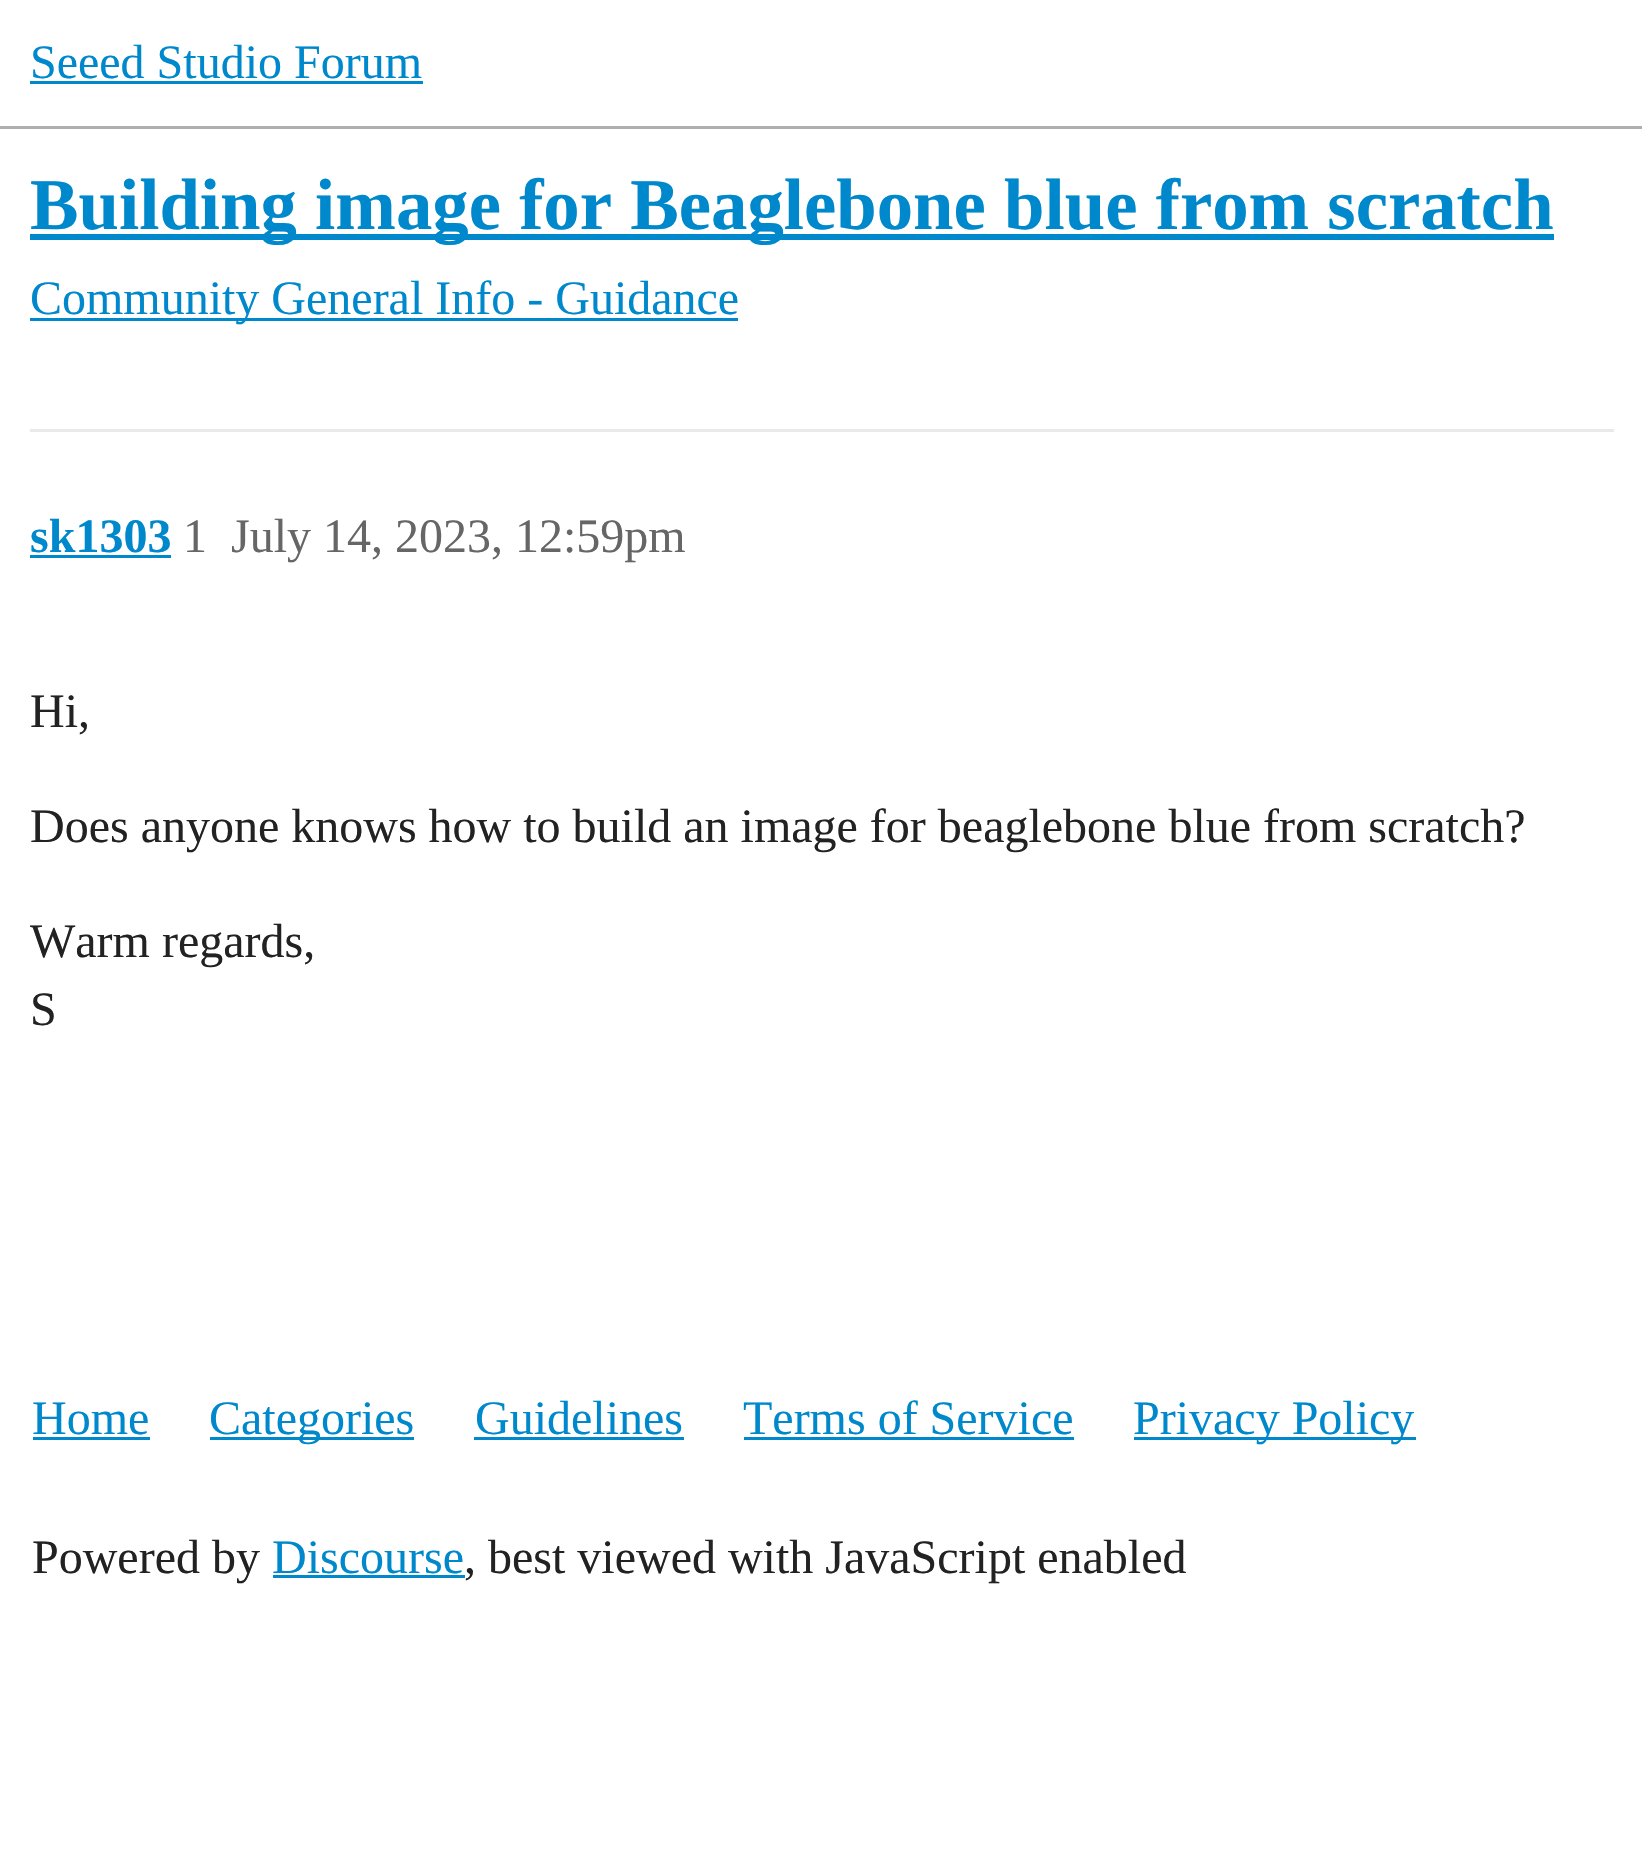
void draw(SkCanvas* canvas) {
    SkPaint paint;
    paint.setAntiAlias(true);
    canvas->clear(0xFFFFFFFF);
    paint.setColor(0xFFAFAFAF);
    canvas->drawRect(SkRect::MakeXYWH(0, 126, 1642, 3), paint);
    SkFont font1(fontMgr->matchFamilyStyle("Liberation Serif", SkFontStyle::Normal()), 48);
    font1.setSubpixel(true);
    paint.setColor(0xFF0088CC);
    canvas->drawString("Seeed Studio Forum", 30, 78, font1, paint);
    canvas->drawRect(SkRect::MakeXYWH(30, 81, 393, 3), paint);
    canvas->drawRect(SkRect::MakeXYWH(30, 234, 1524, 6), paint);
    SkFont font2(fontMgr->matchFamilyStyle("Liberation Serif", SkFontStyle::Bold()), 72.75f);
    font2.setSubpixel(true);
    canvas->drawString("Building image for Beaglebone blue from scratch", 30, 229, font2, paint);
    canvas->drawRect(SkRect::MakeXYWH(30, 318, 228, 3), paint);
    canvas->drawString("Community General Info - Guidance", 30, 314, font1, paint);
    canvas->drawRect(SkRect::MakeXYWH(258, 318, 480, 3), paint);
    paint.setColor(0xFFE9E9E9);
    canvas->drawRect(SkRect::MakeXYWH(30, 429, 1584, 3), paint);
    SkFont font3(fontMgr->matchFamilyStyle("Liberation Serif", SkFontStyle::Bold()), 48);
    font3.setSubpixel(true);
    paint.setColor(0xFF0088CC);
    canvas->drawString("sk1303", 30, 552, font3, paint);
    canvas->drawRect(SkRect::MakeXYWH(30, 555, 141, 3), paint);
    paint.setColor(0xFF666666);
    canvas->drawString("1", 183, 552, font1, paint);
    canvas->drawString("July 14, 2023, 12:59pm", 231, 552, font1, paint);
    paint.setColor(0xFF222222);
    canvas->drawString("Hi,", 30, 727, font1, paint);
    canvas->drawString("Does anyone knows how to build an image for beaglebone blue from scratch?", 30, 842, font1, paint);
    canvas->drawString("Warm regards,", 30, 957, font1, paint);
    canvas->drawString("S", 30, 1025, font1, paint);
    paint.setColor(0xFF0088CC);
    canvas->drawString("Home", 32, 1434, font1, paint);
    canvas->drawRect(SkRect::MakeXYWH(33, 1437, 117, 3), paint);
    canvas->drawRect(SkRect::MakeXYWH(210, 1437, 204, 3), paint);
    canvas->drawString("Categories", 209, 1434, font1, paint);
    canvas->drawString("Guidelines", 475, 1434, font1, paint);
    canvas->drawRect(SkRect::MakeXYWH(474, 1437, 210, 3), paint);
    canvas->drawString("Terms of Service", 743, 1434, font1, paint);
    canvas->drawRect(SkRect::MakeXYWH(744, 1437, 330, 3), paint);
    canvas->drawRect(SkRect::MakeXYWH(1134, 1437, 282, 3), paint);
    canvas->drawString("Privacy Policy", 1133, 1434, font1, paint);
    paint.setColor(0xFF222222);
    canvas->drawString("Powered by", 32, 1573, font1, paint);
    paint.setColor(0xFF0088CC);
    canvas->drawString("Discourse", 272, 1573, font1, paint);
    canvas->drawRect(SkRect::MakeXYWH(273, 1575, 192, 3), paint);
    paint.setColor(0xFF222222);
    canvas->drawString(", best viewed with JavaScript enabled", 464, 1573, font1, paint);
}
